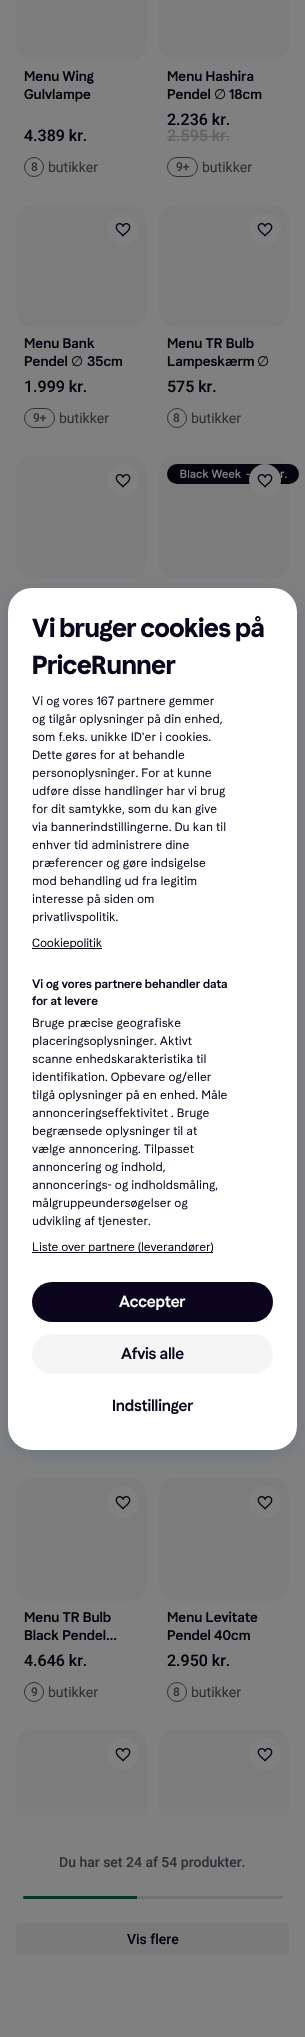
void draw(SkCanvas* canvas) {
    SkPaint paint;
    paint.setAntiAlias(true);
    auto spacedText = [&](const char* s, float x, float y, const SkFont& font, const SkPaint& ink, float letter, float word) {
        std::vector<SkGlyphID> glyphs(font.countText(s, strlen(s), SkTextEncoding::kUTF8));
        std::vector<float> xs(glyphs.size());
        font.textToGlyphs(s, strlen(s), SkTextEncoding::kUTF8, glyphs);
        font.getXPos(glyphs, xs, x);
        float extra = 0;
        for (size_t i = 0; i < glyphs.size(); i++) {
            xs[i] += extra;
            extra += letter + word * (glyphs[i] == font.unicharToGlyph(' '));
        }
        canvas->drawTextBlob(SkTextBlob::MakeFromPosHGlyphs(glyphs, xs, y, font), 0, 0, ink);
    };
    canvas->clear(0xFF808080);
    paint.setColor(0xFF7C7C7D);
    canvas->drawRoundRect(SkRect::MakeXYWH(16, -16, 131, 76), 16, 16, paint);
    SkFont font1(fontMgr->matchFamilyStyle("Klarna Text", SkFontStyle(500, SkFontStyle::kNormal_Width, SkFontStyle::kUpright_Slant)), 14);
    font1.setSubpixel(true);
    paint.setColor(0xFF06030F);
    canvas->drawString("Menu Wing", 24, 81, font1, paint);
    canvas->drawString("Gulvlampe", 24, 99, font1, paint);
    SkFont font2(fontMgr->matchFamilyStyle("Roboto", SkFontStyle(500, SkFontStyle::kNormal_Width, SkFontStyle::kUpright_Slant)), 16);
    font2.setSubpixel(true);
    canvas->drawString("4.389 kr.", 24, 141, font2, paint);
    paint.setStyle(SkPaint::kStroke_Style);
    paint.setStrokeWidth(1);
    paint.setColor(0xFF313037);
    canvas->drawCircle(34, 167, 9.5f, paint);
    SkFont font3(fontMgr->matchFamilyStyle("Roboto", SkFontStyle(500, SkFontStyle::kNormal_Width, SkFontStyle::kUpright_Slant)), 12);
    font3.setSubpixel(true);
    paint.setStyle(SkPaint::kFill_Style);
    canvas->drawString("8", 31, 171, font3, paint);
    SkFont font4(fontMgr->matchFamilyStyle("Roboto", SkFontStyle::Normal()), 14);
    font4.setSubpixel(true);
    canvas->drawString("butikker", 48, 172, font4, paint);
    paint.setColor(0xFF7C7C7D);
    canvas->drawRoundRect(SkRect::MakeXYWH(159, -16, 130, 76), 16, 16, paint);
    paint.setColor(0xFF06030F);
    canvas->drawString("Menu Hashira", 167, 81, font1, paint);
    canvas->drawString("Pendel", 167, 99, font1, paint);
    SkFont font5(fontMgr->matchFamilyStyle("DejaVu Sans", SkFontStyle::Normal()), 14);
    font5.setSubpixel(true);
    canvas->drawString("∅", 214, 99, font5, paint);
    canvas->drawString("18cm", 229, 99, font1, paint);
    canvas->drawString("2.236 kr.", 167, 125, font2, paint);
    paint.setColor(0xFF626265);
    canvas->drawRect(SkRect::MakeXYWH(167, 136, 63, 1), paint);
    canvas->drawString("2.595 kr.", 167, 141, font2, paint);
    paint.setStyle(SkPaint::kStroke_Style);
    paint.setColor(0xFF313037);
    canvas->drawRoundRect(SkRect::MakeXYWH(167.5f, 157.5f, 30, 19), 9.5f, 9.5f, paint);
    paint.setStyle(SkPaint::kFill_Style);
    canvas->drawString("9+", 176, 171, font3, paint);
    canvas->drawString("butikker", 202, 172, font4, paint);
    paint.setColor(0xFF7C7C7D);
    canvas->drawRoundRect(SkRect::MakeXYWH(16, 205, 131, 122), 16, 16, paint);
    paint.setColor(0xFF808080);
    canvas->drawCircle(123, 229, 16, paint);
    canvas->drawImageRect(SkImages::DeferredFromEncodedData(SkData::MakeFromFileName("img1.png")), SkRect::MakeXYWH(115, 223, 16, 14), SkSamplingOptions());
    paint.setColor(0xFF06030F);
    canvas->drawString("Menu Bank", 24, 348, font1, paint);
    canvas->drawString("Pendel", 24, 366, font1, paint);
    canvas->drawString("∅", 71, 366, font5, paint);
    canvas->drawString("35cm", 87, 366, font1, paint);
    canvas->drawString("1.999 kr.", 24, 392, font2, paint);
    paint.setStyle(SkPaint::kStroke_Style);
    paint.setColor(0xFF313037);
    canvas->drawRoundRect(SkRect::MakeXYWH(24.5f, 408.5f, 30, 19), 9.5f, 9.5f, paint);
    paint.setStyle(SkPaint::kFill_Style);
    canvas->drawString("9+", 33, 422, font3, paint);
    canvas->drawString("butikker", 59, 423, font4, paint);
    paint.setColor(0xFF7C7C7D);
    canvas->drawRoundRect(SkRect::MakeXYWH(159, 205, 130, 122), 16, 16, paint);
    paint.setColor(0xFF808080);
    canvas->drawCircle(265, 229, 16, paint);
    canvas->drawImageRect(SkImages::DeferredFromEncodedData(SkData::MakeFromFileName("img1.png")), SkRect::MakeXYWH(257, 223, 16, 14), SkSamplingOptions());
    paint.setColor(0xFF06030F);
    canvas->drawString("Menu TR Bulb", 167, 348, font1, paint);
    canvas->drawString("Lampeskærm", 167, 366, font1, paint);
    canvas->drawString("∅", 257, 366, font5, paint);
    canvas->drawString("575 kr.", 167, 392, font2, paint);
    paint.setStyle(SkPaint::kStroke_Style);
    paint.setColor(0xFF313037);
    canvas->drawCircle(177, 418, 9.5f, paint);
    paint.setStyle(SkPaint::kFill_Style);
    canvas->drawString("8", 173, 422, font3, paint);
    canvas->drawString("butikker", 191, 423, font4, paint);
    paint.setColor(0xFF7C7C7D);
    canvas->drawRoundRect(SkRect::MakeXYWH(16, 456, 131, 123), 16, 16, paint);
    paint.setColor(0xFF808080);
    canvas->drawCircle(123, 480, 16, paint);
    canvas->drawImageRect(SkImages::DeferredFromEncodedData(SkData::MakeFromFileName("img1.png")), SkRect::MakeXYWH(115, 474, 16, 14), SkSamplingOptions());
    paint.setColor(0xFF7C7C7D);
    canvas->drawRoundRect(SkRect::MakeXYWH(159, 456, 130, 123), 16, 16, paint);
    paint.setColor(0xFF06030F);
    canvas->drawRoundRect(SkRect::MakeXYWH(167, 464, 132, 20), 10, 10, paint);
    paint.setColor(0xFF808080);
    canvas->drawCircle(265, 480, 16, paint);
    canvas->drawImageRect(SkImages::DeferredFromEncodedData(SkData::MakeFromFileName("img1.png")), SkRect::MakeXYWH(257, 474, 16, 14), SkSamplingOptions());
    canvas->drawImageRect(SkImages::DeferredFromEncodedData(SkData::MakeFromFileName("img2.png")), SkRect::MakeXYWH(180, 469, 61, 9), SkSamplingOptions());
    canvas->drawString("-", 246, 478, font3, paint);
    canvas->drawString("r.", 280, 478, font3, paint);
    paint.setStyle(SkPaint::kStroke_Style);
    paint.setColor(0xFF313037);
    canvas->drawCircle(34, 1440, 9.5f, paint);
    paint.setStyle(SkPaint::kFill_Style);
    paint.setColor(0xFF7C7C7D);
    canvas->drawRoundRect(SkRect::MakeXYWH(16, 1478, 131, 123), 16, 16, paint);
    paint.setColor(0xFF808080);
    canvas->drawCircle(123, 1502, 16, paint);
    canvas->drawImageRect(SkImages::DeferredFromEncodedData(SkData::MakeFromFileName("img1.png")), SkRect::MakeXYWH(115, 1496, 16, 14), SkSamplingOptions());
    paint.setColor(0xFF06030F);
    canvas->drawString("Menu TR Bulb", 24, 1622, font1, paint);
    canvas->drawString("Black Pendel…", 24, 1640, font1, paint);
    canvas->drawString("4.646 kr.", 24, 1666, font2, paint);
    paint.setStyle(SkPaint::kStroke_Style);
    paint.setColor(0xFF313037);
    canvas->drawCircle(34, 1692, 9.5f, paint);
    paint.setStyle(SkPaint::kFill_Style);
    canvas->drawString("9", 31, 1696, font3, paint);
    canvas->drawString("butikker", 48, 1697, font4, paint);
    paint.setColor(0xFF7C7C7D);
    canvas->drawRoundRect(SkRect::MakeXYWH(159, 1478, 130, 123), 16, 16, paint);
    paint.setColor(0xFF808080);
    canvas->drawCircle(265, 1502, 16, paint);
    canvas->drawImageRect(SkImages::DeferredFromEncodedData(SkData::MakeFromFileName("img1.png")), SkRect::MakeXYWH(257, 1496, 16, 14), SkSamplingOptions());
    paint.setColor(0xFF06030F);
    canvas->drawString("Menu Levitate", 167, 1622, font1, paint);
    canvas->drawString("Pendel 40cm", 167, 1640, font1, paint);
    canvas->drawString("2.950 kr.", 167, 1666, font2, paint);
    paint.setStyle(SkPaint::kStroke_Style);
    paint.setColor(0xFF313037);
    canvas->drawCircle(177, 1692, 9.5f, paint);
    paint.setStyle(SkPaint::kFill_Style);
    canvas->drawString("8", 173, 1696, font3, paint);
    canvas->drawString("butikker", 191, 1697, font4, paint);
    paint.setColor(0xFF7C7C7D);
    canvas->drawRoundRect(SkRect::MakeXYWH(16, 1730, 131, 122), 16, 16, paint);
    paint.setColor(0xFF808080);
    canvas->drawCircle(123, 1754, 16, paint);
    canvas->drawImageRect(SkImages::DeferredFromEncodedData(SkData::MakeFromFileName("img1.png")), SkRect::MakeXYWH(115, 1748, 16, 14), SkSamplingOptions());
    paint.setColor(0xFF7C7C7D);
    canvas->drawRoundRect(SkRect::MakeXYWH(159, 1730, 130, 122), 16, 16, paint);
    paint.setColor(0xFF808080);
    canvas->drawCircle(265, 1754, 16, paint);
    canvas->drawImageRect(SkImages::DeferredFromEncodedData(SkData::MakeFromFileName("img1.png")), SkRect::MakeXYWH(257, 1748, 16, 14), SkSamplingOptions());
    {
        const SkColor colors[] = {0x00808080, 0xFF808080, 0xFF808080};
        const float stops[] = {0, 0.2f, 1};
        const SkPoint ends[] = {{153, 1782}, {153, 2005}};
        paint.setShader(SkGradientShader::MakeLinear(ends, colors, stops, 3, SkTileMode::kClamp));
        paint.setAlpha(255);
    }
    canvas->drawRect(SkRect::MakeXYWH(16, 1809, 273, 43), paint);
    SkFont font6(fontMgr->matchFamilyStyle("Roboto", SkFontStyle(500, SkFontStyle::kNormal_Width, SkFontStyle::kUpright_Slant)), 14);
    font6.setSubpixel(true);
    paint.setShader(nullptr);
    paint.setColor(0xFF313037);
    canvas->drawString("Du har set 24 af 54 produkter.", 59, 1867, font6, paint);
    paint.setColor(0xFF0A3722);
    canvas->drawPath(SkPathBuilder().moveTo(24.5f, 1896).lineTo(137, 1896).lineTo(137, 1899).lineTo(24.5f, 1899).cubicTo(23.5f, 1899, 23, 1898.5f, 23, 1897.5f).cubicTo(23, 1896.5f, 23.5f, 1896, 24.5f, 1896).close().detach(), paint);
    paint.setColor(0xFF717174);
    canvas->drawPath(SkPathBuilder().moveTo(137, 1896).lineTo(281.5f, 1896).cubicTo(282.5f, 1896, 283, 1896.5f, 283, 1897.5f).cubicTo(283, 1898.5f, 282.5f, 1899, 281.5f, 1899).lineTo(137, 1899).close().detach(), paint);
    paint.setColor(0xFF7A7A7B);
    canvas->drawRoundRect(SkRect::MakeXYWH(16, 1923, 273, 32), 4, 4, paint);
    paint.setColor(0xFF06030F);
    canvas->drawString("Vis flere", 127, 1944, font6, paint);
    paint.setColor(0x33204C88);
    paint.setMaskFilter(SkMaskFilter::MakeBlur(kNormal_SkBlurStyle, 9));
    canvas->drawRoundRect(SkRect::MakeXYWH(8, 592, 289, 862), 24, 24, paint);
    paint.setMaskFilter(nullptr);
    paint.setColor(0xFFFFFFFF);
    canvas->drawRoundRect(SkRect::MakeXYWH(8, 588, 289, 862), 24, 24, paint);
    SkFont font7(fontMgr->matchFamilyStyle("Klarna Text", SkFontStyle::Bold()), 26);
    font7.setSubpixel(true);
    paint.setColor(0xFF0B051D);
    canvas->drawString("Vi bruger cookies på", 32, 637, font7, paint);
    canvas->drawString("PriceRunner", 32, 674, font7, paint);
    SkFont font8(fontMgr->matchFamilyStyle("Klarna Text", SkFontStyle::Normal()), 12);
    font8.setSubpixel(true);
    canvas->drawString("Vi og vores 167 partnere gemmer", 32, 705, font8, paint);
    canvas->drawString("og tilgår oplysninger på din enhed,", 32, 723, font8, paint);
    canvas->drawString("som f.eks. unikke ID'er i cookies.", 32, 741, font8, paint);
    canvas->drawString("Dette gøres for at behandle", 32, 759, font8, paint);
    canvas->drawString("personoplysninger. For at kunne", 32, 777, font8, paint);
    canvas->drawString("udføre disse handlinger har vi brug", 32, 795, font8, paint);
    canvas->drawString("for dit samtykke, som du kan give", 32, 813, font8, paint);
    canvas->drawString("via bannerindstillingerne. Du kan til", 32, 831, font8, paint);
    canvas->drawString("enhver tid administrere dine", 32, 849, font8, paint);
    canvas->drawString("præferencer og gøre indsigelse", 32, 867, font8, paint);
    canvas->drawString("mod behandling ud fra legitim", 32, 885, font8, paint);
    canvas->drawString("interesse på siden om", 32, 903, font8, paint);
    canvas->drawString("privatlivspolitik.", 32, 921, font8, paint);
    canvas->drawRect(SkRect::MakeXYWH(32, 948, 70, 1), paint);
    spacedText("Cookiepolitik", 32, 947, font8, paint, -0.2f, 0);
    SkFont font9(fontMgr->matchFamilyStyle("Klarna Text", SkFontStyle(500, SkFontStyle::kNormal_Width, SkFontStyle::kUpright_Slant)), 12);
    font9.setSubpixel(true);
    canvas->drawString("Vi og vores partnere behandler data", 32, 988, font9, paint);
    canvas->drawString("for at levere", 32, 1005, font9, paint);
    canvas->drawString("Bruge præcise geografiske", 32, 1027, font8, paint);
    canvas->drawString("placeringsoplysninger. Aktivt", 32, 1045, font8, paint);
    canvas->drawString("scanne enhedskarakteristika til", 32, 1063, font8, paint);
    canvas->drawString("identifikation. Opbevare og/eller", 32, 1081, font8, paint);
    canvas->drawString("tilgå oplysninger på en enhed. Måle", 32, 1099, font8, paint);
    canvas->drawString("annonceringseffektivitet . Bruge", 32, 1117, font8, paint);
    canvas->drawString("begrænsede oplysninger til at", 32, 1135, font8, paint);
    canvas->drawString("vælge annoncering. Tilpasset", 32, 1153, font8, paint);
    canvas->drawString("annoncering og indhold,", 32, 1171, font8, paint);
    canvas->drawString("annoncerings- og indholdsmåling,", 32, 1189, font8, paint);
    canvas->drawString("målgruppeundersøgelser og", 32, 1207, font8, paint);
    canvas->drawString("udvikling af tjenester.", 32, 1225, font8, paint);
    canvas->drawRect(SkRect::MakeXYWH(32, 1252, 181, 1), paint);
    spacedText("Liste over partnere (leverandører)", 32, 1251, font8, paint, -0.2f, 0);
    canvas->drawRoundRect(SkRect::MakeXYWH(32, 1282, 241, 40), 20, 20, paint);
    SkFont font10(fontMgr->matchFamilyStyle("Klarna Text", SkFontStyle(500, SkFontStyle::kNormal_Width, SkFontStyle::kUpright_Slant)), 16);
    font10.setSubpixel(true);
    paint.setColor(0xFFFFFFFF);
    spacedText("Accepter", 119, 1307, font10, paint, -0.2f, 0);
    paint.setColor(0xFFF5F5F5);
    canvas->drawRoundRect(SkRect::MakeXYWH(32, 1334, 241, 40), 20, 20, paint);
    paint.setColor(0xFF0B051D);
    spacedText("Afvis alle", 121, 1359, font10, paint, -0.2f, 0);
    spacedText("Indstillinger", 112, 1411, font10, paint, -0.2f, 0);
}
